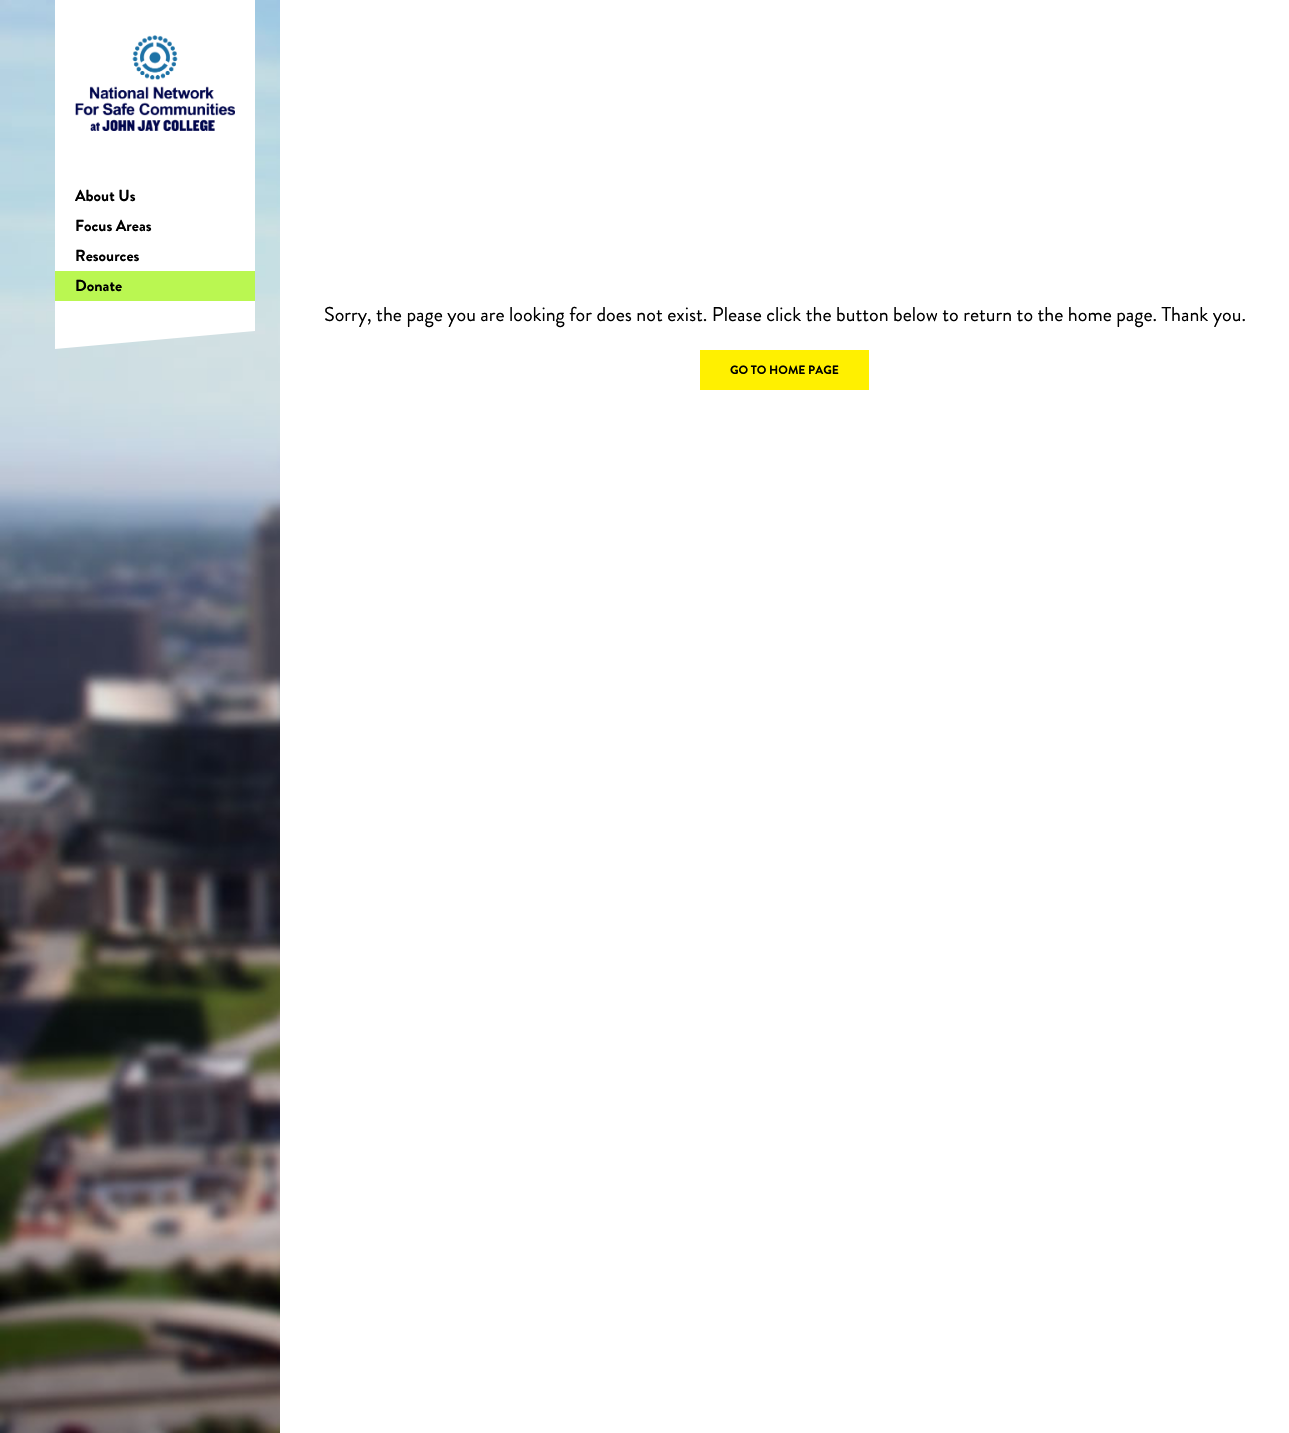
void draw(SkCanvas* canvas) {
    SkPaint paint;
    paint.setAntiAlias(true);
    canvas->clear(0xFFFFFFFF);
    canvas->drawImageRect(SkImages::DeferredFromEncodedData(SkData::MakeFromFileName("img1.png")), SkRect::MakeXYWH(0, 0, 280, 1433), SkSamplingOptions());
    paint.setColor(0xFFFFFFFF);
    canvas->drawRect(SkRect::MakeXYWH(55, 0, 200, 183), paint);
    canvas->drawImageRect(SkImages::DeferredFromEncodedData(SkData::MakeFromFileName("img2.png")), SkRect::MakeXYWH(75, 35, 160, 96), SkSamplingOptions());
    canvas->drawPath(SkPathBuilder().moveTo(55, 183).lineTo(255, 166).lineTo(255, 331).lineTo(55, 349).close().detach(), paint);
    SkFont font1(fontMgr->matchFamilyStyle("Brandon Grotesque", SkFontStyle::Bold()), 16);
    font1.setSubpixel(true);
    paint.setColor(0xFF000000);
    canvas->drawString("About Us", 75, 201, font1, paint);
    canvas->drawString("Focus Areas", 75, 231, font1, paint);
    canvas->drawString("Resources", 75, 261, font1, paint);
    paint.setColor(0xFFBAF751);
    canvas->drawRect(SkRect::MakeXYWH(55, 271, 200, 30), paint);
    paint.setColor(0xFF000000);
    canvas->drawString("Donate", 75, 291, font1, paint);
    SkFont font2(fontMgr->matchFamilyStyle("Brandon Grotesque", SkFontStyle::Normal()), 20);
    font2.setSubpixel(true);
    canvas->drawString("Sorry, the page you are looking for does not exist. Please click the button below to return to the home page. Thank you.", 324, 321, font2, paint);
    paint.setColor(0xFFFFF000);
    canvas->drawRect(SkRect::MakeXYWH(700, 350, 169, 40), paint);
    SkFont font3(fontMgr->matchFamilyStyle("Brandon Grotesque", SkFontStyle::Bold()), 12);
    font3.setSubpixel(true);
    paint.setColor(0xFF000000);
    canvas->drawString("GO TO HOME PAGE", 730, 374, font3, paint);
}
